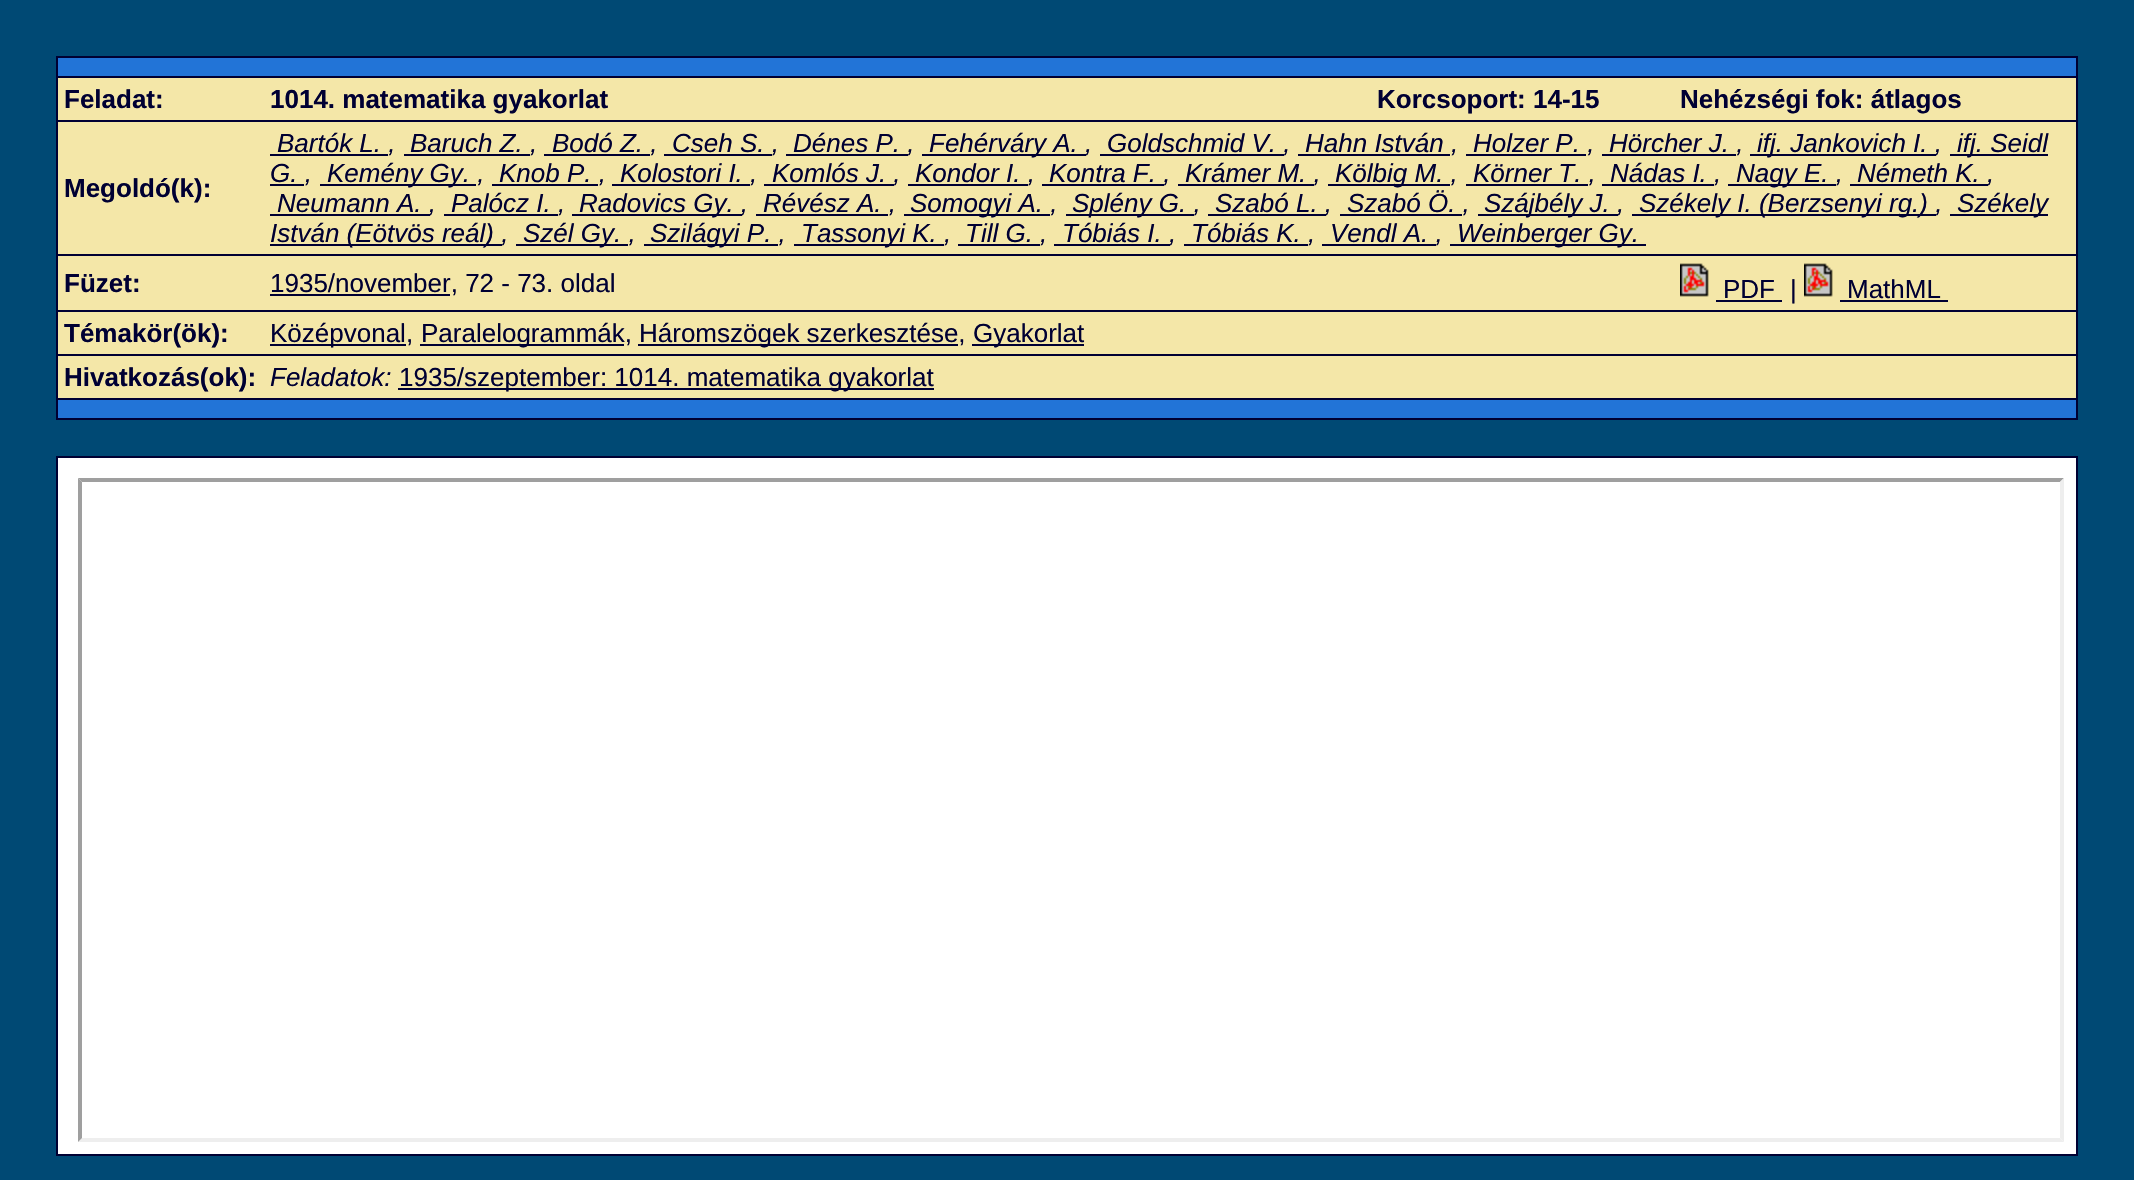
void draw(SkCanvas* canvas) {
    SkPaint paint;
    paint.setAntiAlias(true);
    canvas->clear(0xFF004974);
    paint.setColor(0xFF000033);
    canvas->drawRect(SkRect::MakeXYWH(56, 56, 2022, 364), paint);
    paint.setColor(0xFF2274D7);
    canvas->drawRect(SkRect::MakeXYWH(58, 58, 2018, 18), paint);
    paint.setColor(0xFFF4E7A8);
    canvas->drawRect(SkRect::MakeXYWH(58, 78, 2018, 42), paint);
    SkFont font1(fontMgr->matchFamilyStyle("Liberation Sans", SkFontStyle::Bold()), 26);
    font1.setSubpixel(true);
    paint.setColor(0xFF000033);
    canvas->drawString("Feladat:", 64, 108, font1, paint);
    canvas->drawString("1014. matematika gyakorlat", 270, 108, font1, paint);
    canvas->drawString("Korcsoport: 14-15", 1377, 108, font1, paint);
    canvas->drawString("Nehézségi fok: átlagos", 1680, 108, font1, paint);
    paint.setColor(0xFFF4E7A8);
    canvas->drawRect(SkRect::MakeXYWH(58, 122, 2018, 132), paint);
    paint.setColor(0xFF000033);
    canvas->drawString("Megoldó(k):", 64, 197, font1, paint);
    canvas->drawRect(SkRect::MakeXYWH(270, 154, 118, 2), paint);
    SkFont font2(fontMgr->matchFamilyStyle("Liberation Sans", SkFontStyle::Italic()), 26);
    font2.setSubpixel(true);
    canvas->drawString("Bartók L. ,", 277, 152, font2, paint);
    canvas->drawRect(SkRect::MakeXYWH(404, 154, 126, 2), paint);
    canvas->drawString("Baruch Z. ,", 410, 152, font2, paint);
    canvas->drawRect(SkRect::MakeXYWH(544, 154, 106, 2), paint);
    canvas->drawString("Bodó Z. ,", 552, 152, font2, paint);
    canvas->drawRect(SkRect::MakeXYWH(664, 154, 108, 2), paint);
    canvas->drawString("Cseh S. ,", 672, 152, font2, paint);
    canvas->drawRect(SkRect::MakeXYWH(786, 154, 122, 2), paint);
    canvas->drawString("Dénes P. ,", 793, 152, font2, paint);
    canvas->drawRect(SkRect::MakeXYWH(922, 154, 164, 2), paint);
    canvas->drawString("Fehérváry A. ,", 929, 152, font2, paint);
    canvas->drawRect(SkRect::MakeXYWH(1100, 154, 184, 2), paint);
    canvas->drawString("Goldschmid V. ,", 1107, 152, font2, paint);
    canvas->drawRect(SkRect::MakeXYWH(1298, 154, 152, 2), paint);
    canvas->drawString("Hahn István ,", 1305, 152, font2, paint);
    canvas->drawRect(SkRect::MakeXYWH(1466, 154, 120, 2), paint);
    canvas->drawString("Holzer P. ,", 1473, 152, font2, paint);
    canvas->drawRect(SkRect::MakeXYWH(1602, 154, 134, 2), paint);
    canvas->drawString("Hörcher J. ,", 1609, 152, font2, paint);
    canvas->drawRect(SkRect::MakeXYWH(1750, 154, 186, 2), paint);
    canvas->drawString("ifj. Jankovich I. ,", 1757, 152, font2, paint);
    canvas->drawRect(SkRect::MakeXYWH(1950, 154, 98, 2), paint);
    canvas->drawString("ifj. Seidl", 1957, 152, font2, paint);
    canvas->drawRect(SkRect::MakeXYWH(270, 184, 34, 2), paint);
    canvas->drawString("G. ,", 270, 182, font2, paint);
    canvas->drawRect(SkRect::MakeXYWH(320, 184, 156, 2), paint);
    canvas->drawString("Kemény Gy. ,", 327, 182, font2, paint);
    canvas->drawRect(SkRect::MakeXYWH(492, 184, 106, 2), paint);
    canvas->drawString("Knob P. ,", 499, 182, font2, paint);
    canvas->drawRect(SkRect::MakeXYWH(612, 184, 138, 2), paint);
    canvas->drawString("Kolostori I. ,", 620, 182, font2, paint);
    canvas->drawRect(SkRect::MakeXYWH(764, 184, 130, 2), paint);
    canvas->drawString("Komlós J. ,", 772, 182, font2, paint);
    canvas->drawRect(SkRect::MakeXYWH(908, 184, 120, 2), paint);
    canvas->drawString("Kondor I. ,", 915, 182, font2, paint);
    canvas->drawRect(SkRect::MakeXYWH(1042, 184, 122, 2), paint);
    canvas->drawString("Kontra F. ,", 1049, 182, font2, paint);
    canvas->drawRect(SkRect::MakeXYWH(1178, 184, 136, 2), paint);
    canvas->drawString("Krámer M. ,", 1185, 182, font2, paint);
    canvas->drawRect(SkRect::MakeXYWH(1328, 184, 122, 2), paint);
    canvas->drawString("Kölbig M. ,", 1335, 182, font2, paint);
    canvas->drawRect(SkRect::MakeXYWH(1466, 184, 122, 2), paint);
    canvas->drawString("Körner T. ,", 1473, 182, font2, paint);
    canvas->drawRect(SkRect::MakeXYWH(1602, 184, 112, 2), paint);
    canvas->drawString("Nádas I. ,", 1610, 182, font2, paint);
    canvas->drawRect(SkRect::MakeXYWH(1728, 184, 108, 2), paint);
    canvas->drawString("Nagy E. ,", 1736, 182, font2, paint);
    canvas->drawRect(SkRect::MakeXYWH(1850, 184, 138, 2), paint);
    canvas->drawString("Németh K. ,", 1857, 182, font2, paint);
    canvas->drawRect(SkRect::MakeXYWH(270, 214, 160, 2), paint);
    canvas->drawString("Neumann A. ,", 277, 212, font2, paint);
    canvas->drawRect(SkRect::MakeXYWH(444, 214, 114, 2), paint);
    canvas->drawString("Palócz I. ,", 451, 212, font2, paint);
    canvas->drawRect(SkRect::MakeXYWH(572, 214, 170, 2), paint);
    canvas->drawString("Radovics Gy. ,", 579, 212, font2, paint);
    canvas->drawRect(SkRect::MakeXYWH(756, 214, 132, 2), paint);
    canvas->drawString("Révész A. ,", 763, 212, font2, paint);
    canvas->drawRect(SkRect::MakeXYWH(904, 214, 146, 2), paint);
    canvas->drawString("Somogyi A. ,", 910, 212, font2, paint);
    canvas->drawRect(SkRect::MakeXYWH(1066, 214, 128, 2), paint);
    canvas->drawString("Splény G. ,", 1072, 212, font2, paint);
    canvas->drawRect(SkRect::MakeXYWH(1208, 214, 118, 2), paint);
    canvas->drawString("Szabó L. ,", 1215, 212, font2, paint);
    canvas->drawRect(SkRect::MakeXYWH(1340, 214, 122, 2), paint);
    canvas->drawString("Szabó Ö. ,", 1347, 212, font2, paint);
    canvas->drawRect(SkRect::MakeXYWH(1478, 214, 140, 2), paint);
    canvas->drawString("Szájbély J. ,", 1484, 212, font2, paint);
    canvas->drawRect(SkRect::MakeXYWH(1632, 214, 304, 2), paint);
    canvas->drawString("Székely I. (Berzsenyi rg.) ,", 1639, 212, font2, paint);
    canvas->drawRect(SkRect::MakeXYWH(1950, 214, 98, 2), paint);
    canvas->drawString("Székely", 1957, 212, font2, paint);
    canvas->drawRect(SkRect::MakeXYWH(270, 244, 232, 2), paint);
    canvas->drawString("István (Eötvös reál) ,", 270, 242, font2, paint);
    canvas->drawRect(SkRect::MakeXYWH(516, 244, 112, 2), paint);
    canvas->drawString("Szél Gy. ,", 523, 242, font2, paint);
    canvas->drawRect(SkRect::MakeXYWH(644, 244, 134, 2), paint);
    canvas->drawString("Szilágyi P. ,", 650, 242, font2, paint);
    canvas->drawRect(SkRect::MakeXYWH(794, 244, 150, 2), paint);
    canvas->drawString("Tassonyi K. ,", 801, 242, font2, paint);
    canvas->drawRect(SkRect::MakeXYWH(958, 244, 82, 2), paint);
    canvas->drawString("Till G. ,", 965, 242, font2, paint);
    canvas->drawRect(SkRect::MakeXYWH(1054, 244, 116, 2), paint);
    canvas->drawString("Tóbiás I. ,", 1062, 242, font2, paint);
    canvas->drawRect(SkRect::MakeXYWH(1184, 244, 124, 2), paint);
    canvas->drawString("Tóbiás K. ,", 1191, 242, font2, paint);
    canvas->drawRect(SkRect::MakeXYWH(1322, 244, 114, 2), paint);
    canvas->drawString("Vendl A. ,", 1330, 242, font2, paint);
    canvas->drawRect(SkRect::MakeXYWH(1450, 244, 196, 2), paint);
    canvas->drawString("Weinberger Gy.", 1457, 242, font2, paint);
    paint.setColor(0xFFF4E7A8);
    canvas->drawRect(SkRect::MakeXYWH(58, 256, 2018, 54), paint);
    paint.setColor(0xFF000033);
    canvas->drawString("Füzet:", 64, 292, font1, paint);
    canvas->drawRect(SkRect::MakeXYWH(270, 294, 180, 2), paint);
    SkFont font3(fontMgr->matchFamilyStyle("Liberation Sans", SkFontStyle::Normal()), 26);
    font3.setSubpixel(true);
    canvas->drawString("1935/november, 72 - 73. oldal", 270, 292, font3, paint);
    canvas->drawImageRect(SkImages::DeferredFromEncodedData(SkData::MakeFromFileName("img1.png")), SkRect::MakeXYWH(1680, 263, 29, 34), SkSamplingOptions());
    canvas->drawString("PDF", 1723, 298, font3, paint);
    canvas->drawRect(SkRect::MakeXYWH(1716, 300, 66, 2), paint);
    canvas->drawString("|", 1790, 298, font3, paint);
    canvas->drawImageRect(SkImages::DeferredFromEncodedData(SkData::MakeFromFileName("img1.png")), SkRect::MakeXYWH(1804, 263, 29, 34), SkSamplingOptions());
    canvas->drawString("MathML", 1847, 298, font3, paint);
    canvas->drawRect(SkRect::MakeXYWH(1840, 300, 108, 2), paint);
    paint.setColor(0xFFF4E7A8);
    canvas->drawRect(SkRect::MakeXYWH(58, 312, 2018, 42), paint);
    paint.setColor(0xFF000033);
    canvas->drawString("Témakör(ök):", 64, 342, font1, paint);
    canvas->drawRect(SkRect::MakeXYWH(270, 344, 136, 2), paint);
    canvas->drawString("Középvonal,", 270, 342, font3, paint);
    canvas->drawRect(SkRect::MakeXYWH(420, 344, 204, 2), paint);
    canvas->drawString("Paralelogrammák,", 421, 342, font3, paint);
    canvas->drawRect(SkRect::MakeXYWH(638, 344, 320, 2), paint);
    canvas->drawString("Háromszögek szerkesztése,", 639, 342, font3, paint);
    canvas->drawRect(SkRect::MakeXYWH(972, 344, 112, 2), paint);
    canvas->drawString("Gyakorlat", 973, 342, font3, paint);
    paint.setColor(0xFFF4E7A8);
    canvas->drawRect(SkRect::MakeXYWH(58, 356, 2018, 42), paint);
    paint.setColor(0xFF000033);
    canvas->drawString("Hivatkozás(ok):", 64, 386, font1, paint);
    canvas->drawString("Feladatok:", 270, 386, font2, paint);
    canvas->drawRect(SkRect::MakeXYWH(398, 388, 536, 2), paint);
    canvas->drawString("1935/szeptember: 1014. matematika gyakorlat", 399, 386, font3, paint);
    paint.setColor(0xFF2274D7);
    canvas->drawRect(SkRect::MakeXYWH(58, 400, 2018, 18), paint);
    paint.setColor(0xFF000033);
    canvas->drawRect(SkRect::MakeXYWH(56, 456, 2022, 700), paint);
    paint.setColor(0xFFFFFFFF);
    canvas->drawRect(SkRect::MakeXYWH(58, 458, 2018, 696), paint);
    paint.setColor(0xFF9F9F9F);
    canvas->drawPath(SkPathBuilder().moveTo(78, 478).lineTo(2064, 478).lineTo(2060, 482).lineTo(82, 482).close().detach(), paint);
    paint.setColor(0xFFEEEEEE);
    canvas->drawPath(SkPathBuilder().moveTo(2064, 478).lineTo(2064, 1142).lineTo(2060, 1138).lineTo(2060, 482).close().detach(), paint);
    canvas->drawPath(SkPathBuilder().moveTo(2064, 1142).lineTo(78, 1142).lineTo(82, 1138).lineTo(2060, 1138).close().detach(), paint);
    paint.setColor(0xFF9F9F9F);
    canvas->drawPath(SkPathBuilder().moveTo(78, 1142).lineTo(78, 478).lineTo(82, 482).lineTo(82, 1138).close().detach(), paint);
}
